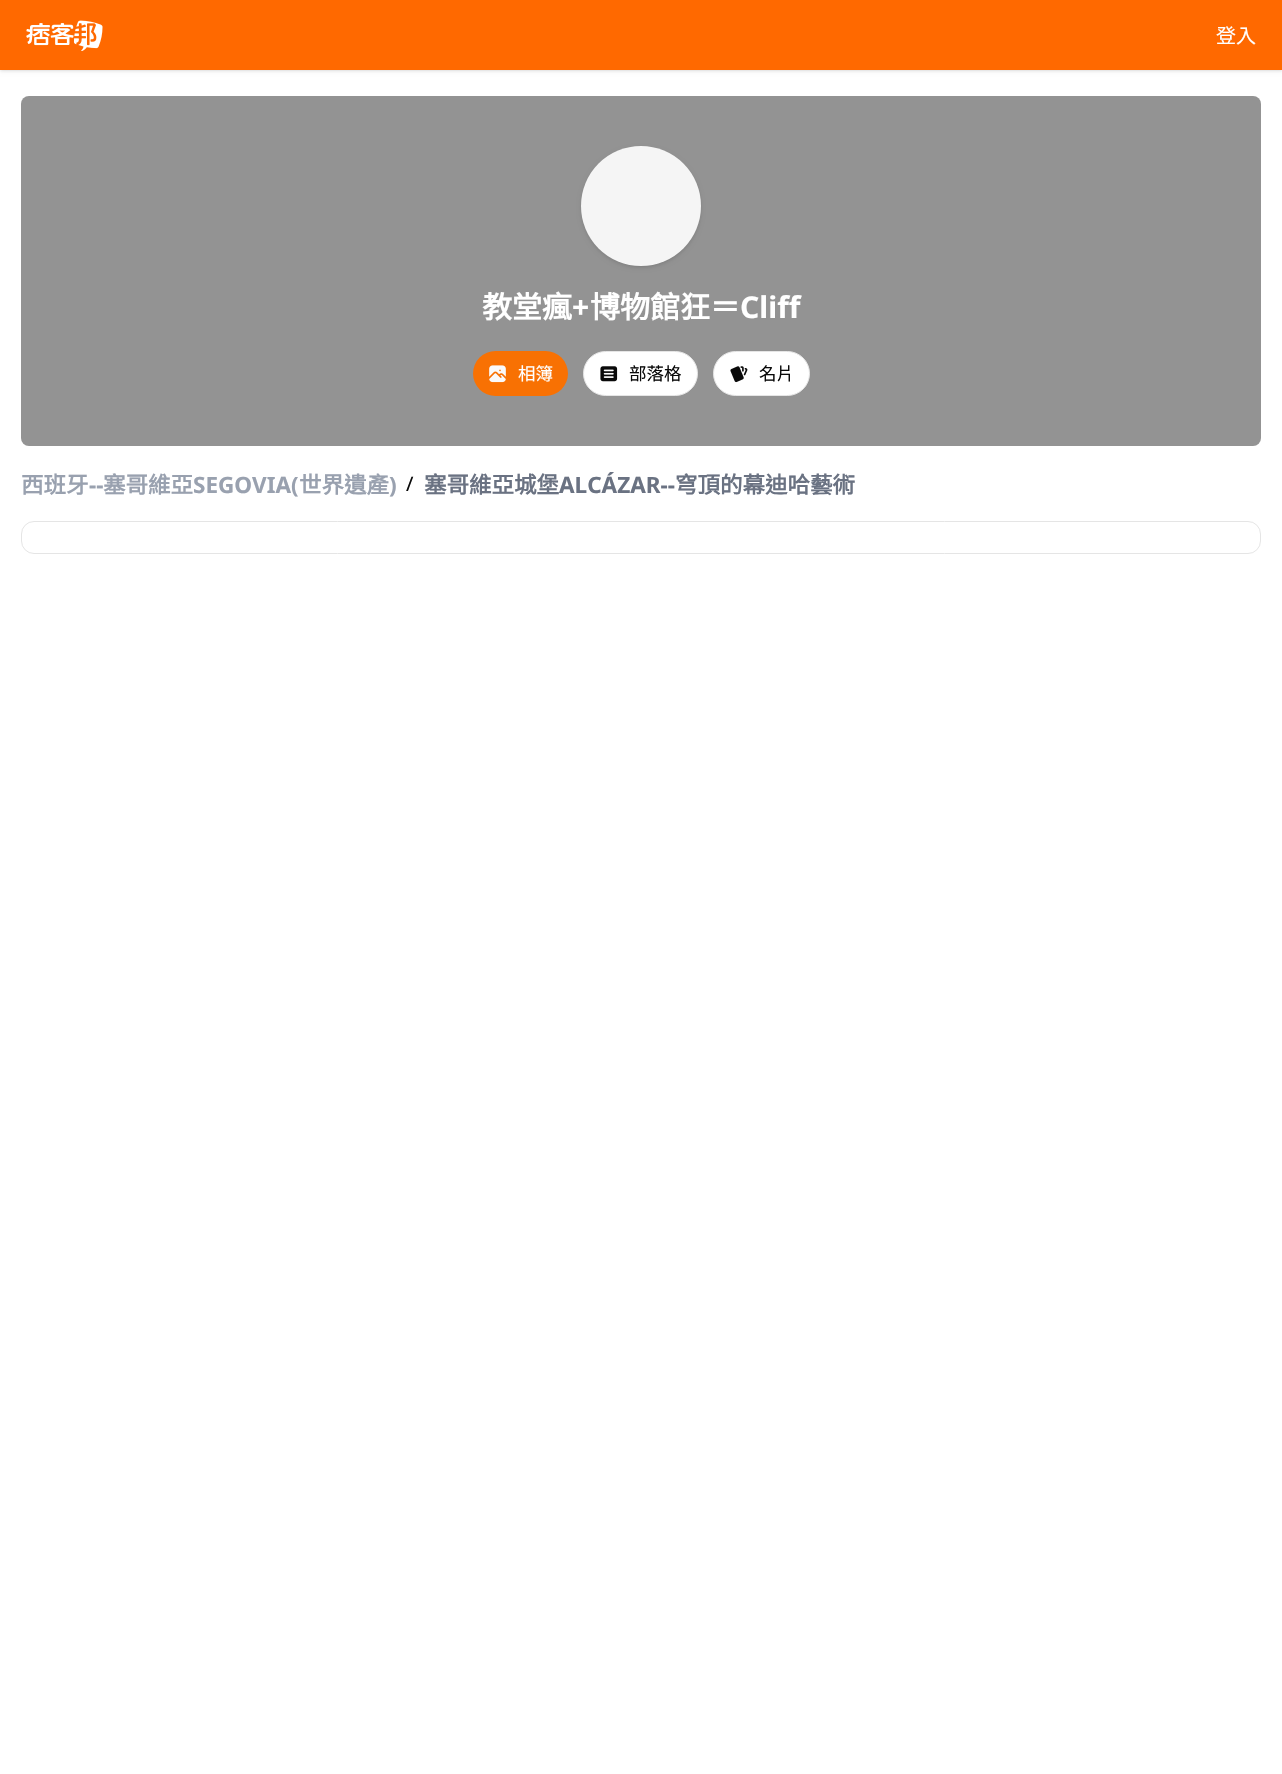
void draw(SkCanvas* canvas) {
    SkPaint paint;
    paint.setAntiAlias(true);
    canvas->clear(0xFFFFFFFF);
    paint.setColor(0x1A000000);
    paint.setMaskFilter(SkMaskFilter::MakeBlur(kNormal_SkBlurStyle, 1));
    canvas->drawRect(SkRect::MakeXYWH(1, 3, 1280, 67), paint);
    paint.setMaskFilter(nullptr);
    paint.setMaskFilter(SkMaskFilter::MakeBlur(kNormal_SkBlurStyle, 2));
    canvas->drawRect(SkRect::MakeXYWH(0, 1, 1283, 70), paint);
    paint.setMaskFilter(nullptr);
    paint.setColor(0xFFFF6900);
    canvas->drawRect(SkRect::MakeXYWH(0, 0, 1282, 70), paint);
    canvas->drawImageRect(SkImages::DeferredFromEncodedData(SkData::MakeFromFileName("img1.png")), SkRect::MakeXYWH(26, 20, 77, 31), SkSamplingOptions());
    SkFont font1(fontMgr->matchFamilyStyle("Noto Sans CJK TC", SkFontStyle::Normal()), 20);
    font1.setSubpixel(true);
    paint.setColor(0xFFFFFFFF);
    canvas->drawString("登入", 1216, 43, font1, paint);
    paint.setColor(0xFFF5F5F5);
    canvas->drawRoundRect(SkRect::MakeXYWH(21, 96, 1240, 350), 8, 8, paint);
    paint.setColor(0x66000000);
    canvas->drawRoundRect(SkRect::MakeXYWH(21, 96, 1240, 350), 8, 8, paint);
    paint.setColor(0x1A000000);
    paint.setMaskFilter(SkMaskFilter::MakeBlur(kNormal_SkBlurStyle, 1));
    canvas->drawRoundRect(SkRect::MakeXYWH(583, 149, 117, 117), 58.5f, 58.5f, paint);
    paint.setMaskFilter(nullptr);
    paint.setMaskFilter(SkMaskFilter::MakeBlur(kNormal_SkBlurStyle, 2));
    canvas->drawRoundRect(SkRect::MakeXYWH(581, 148, 120, 120), 60, 60, paint);
    paint.setMaskFilter(nullptr);
    paint.setColor(0xFFF5F5F5);
    canvas->drawCircle(641, 206, 60, paint);
    SkFont font2(fontMgr->matchFamilyStyle("Noto Sans CJK TC", SkFontStyle::Bold()), 30);
    font2.setSubpixel(true);
    paint.setColor(0xFFFFFFFF);
    canvas->drawString("教堂瘋", 482, 318, font2, paint);
    SkFont font3(fontMgr->matchFamilyStyle("Noto Sans", SkFontStyle::Bold()), 30);
    font3.setSubpixel(true);
    canvas->drawString("+", 572, 318, font3, paint);
    canvas->drawString("博物館狂＝", 590, 318, font2, paint);
    canvas->drawString("Cliff", 740, 318, font3, paint);
    paint.setColor(0xFFF87103);
    canvas->drawRoundRect(SkRect::MakeXYWH(473, 351, 95, 45), 22.5f, 22.5f, paint);
    canvas->drawImageRect(SkImages::DeferredFromEncodedData(SkData::MakeFromFileName("img2.png")), SkRect::MakeXYWH(489, 365, 17, 18), SkSamplingOptions());
    SkFont font4(fontMgr->matchFamilyStyle("Noto Sans CJK TC", SkFontStyle::Normal()), 17.5f);
    font4.setSubpixel(true);
    paint.setColor(0xFFFFFFFF);
    canvas->drawString("相簿", 518, 380, font4, paint);
    canvas->drawRoundRect(SkRect::MakeXYWH(583.5f, 351.5f, 114, 44), 22, 22, paint);
    paint.setStyle(SkPaint::kStroke_Style);
    paint.setStrokeWidth(1);
    paint.setColor(0xFFE5E5E5);
    canvas->drawRoundRect(SkRect::MakeXYWH(583.5f, 351.5f, 114, 44), 22, 22, paint);
    canvas->drawImageRect(SkImages::DeferredFromEncodedData(SkData::MakeFromFileName("img3.png")), SkRect::MakeXYWH(600, 366, 18, 16), SkSamplingOptions());
    paint.setStyle(SkPaint::kFill_Style);
    paint.setColor(0xFF0A0A0A);
    canvas->drawString("部落格", 629, 380, font4, paint);
    paint.setColor(0xFFFFFFFF);
    canvas->drawRoundRect(SkRect::MakeXYWH(713.5f, 351.5f, 96, 44), 22, 22, paint);
    paint.setStyle(SkPaint::kStroke_Style);
    paint.setColor(0xFFE5E5E5);
    canvas->drawRoundRect(SkRect::MakeXYWH(713.5f, 351.5f, 96, 44), 22, 22, paint);
    canvas->drawImageRect(SkImages::DeferredFromEncodedData(SkData::MakeFromFileName("img4.png")), SkRect::MakeXYWH(730, 366, 18, 17), SkSamplingOptions());
    paint.setStyle(SkPaint::kFill_Style);
    paint.setColor(0xFF0A0A0A);
    canvas->drawString("名片", 759, 380, font4, paint);
    SkFont font5(fontMgr->matchFamilyStyle("Noto Sans CJK TC", SkFontStyle::Bold()), 22.5f);
    font5.setSubpixel(true);
    paint.setColor(0xFF99A1AF);
    canvas->drawString("西班牙", 21, 493, font5, paint);
    SkFont font6(fontMgr->matchFamilyStyle("Noto Sans", SkFontStyle::Bold()), 22.5f);
    font6.setSubpixel(true);
    canvas->drawString("--", 89, 493, font6, paint);
    canvas->drawString("塞哥維亞", 103, 493, font5, paint);
    canvas->drawString("SEGOVIA(", 193, 493, font6, paint);
    canvas->drawString("世界遺產", 299, 493, font5, paint);
    canvas->drawString(")", 389, 493, font6, paint);
    SkFont font7(fontMgr->matchFamilyStyle("Noto Sans", SkFontStyle::Normal()), 20);
    font7.setSubpixel(true);
    paint.setColor(0xFF0A0A0A);
    canvas->drawString("/", 406, 491, font7, paint);
    paint.setColor(0xFF6A7282);
    canvas->drawString("塞哥維亞城堡", 424, 493, font5, paint);
    canvas->drawString("ALCÁZAR--", 559, 493, font6, paint);
    canvas->drawString("穹頂的幕迪哈藝術", 675, 493, font5, paint);
    paint.setStyle(SkPaint::kStroke_Style);
    paint.setColor(0xFFE5E5E5);
    canvas->drawRoundRect(SkRect::MakeXYWH(21.5f, 521.5f, 1239, 32), 12.5f, 12.5f, paint);
}
